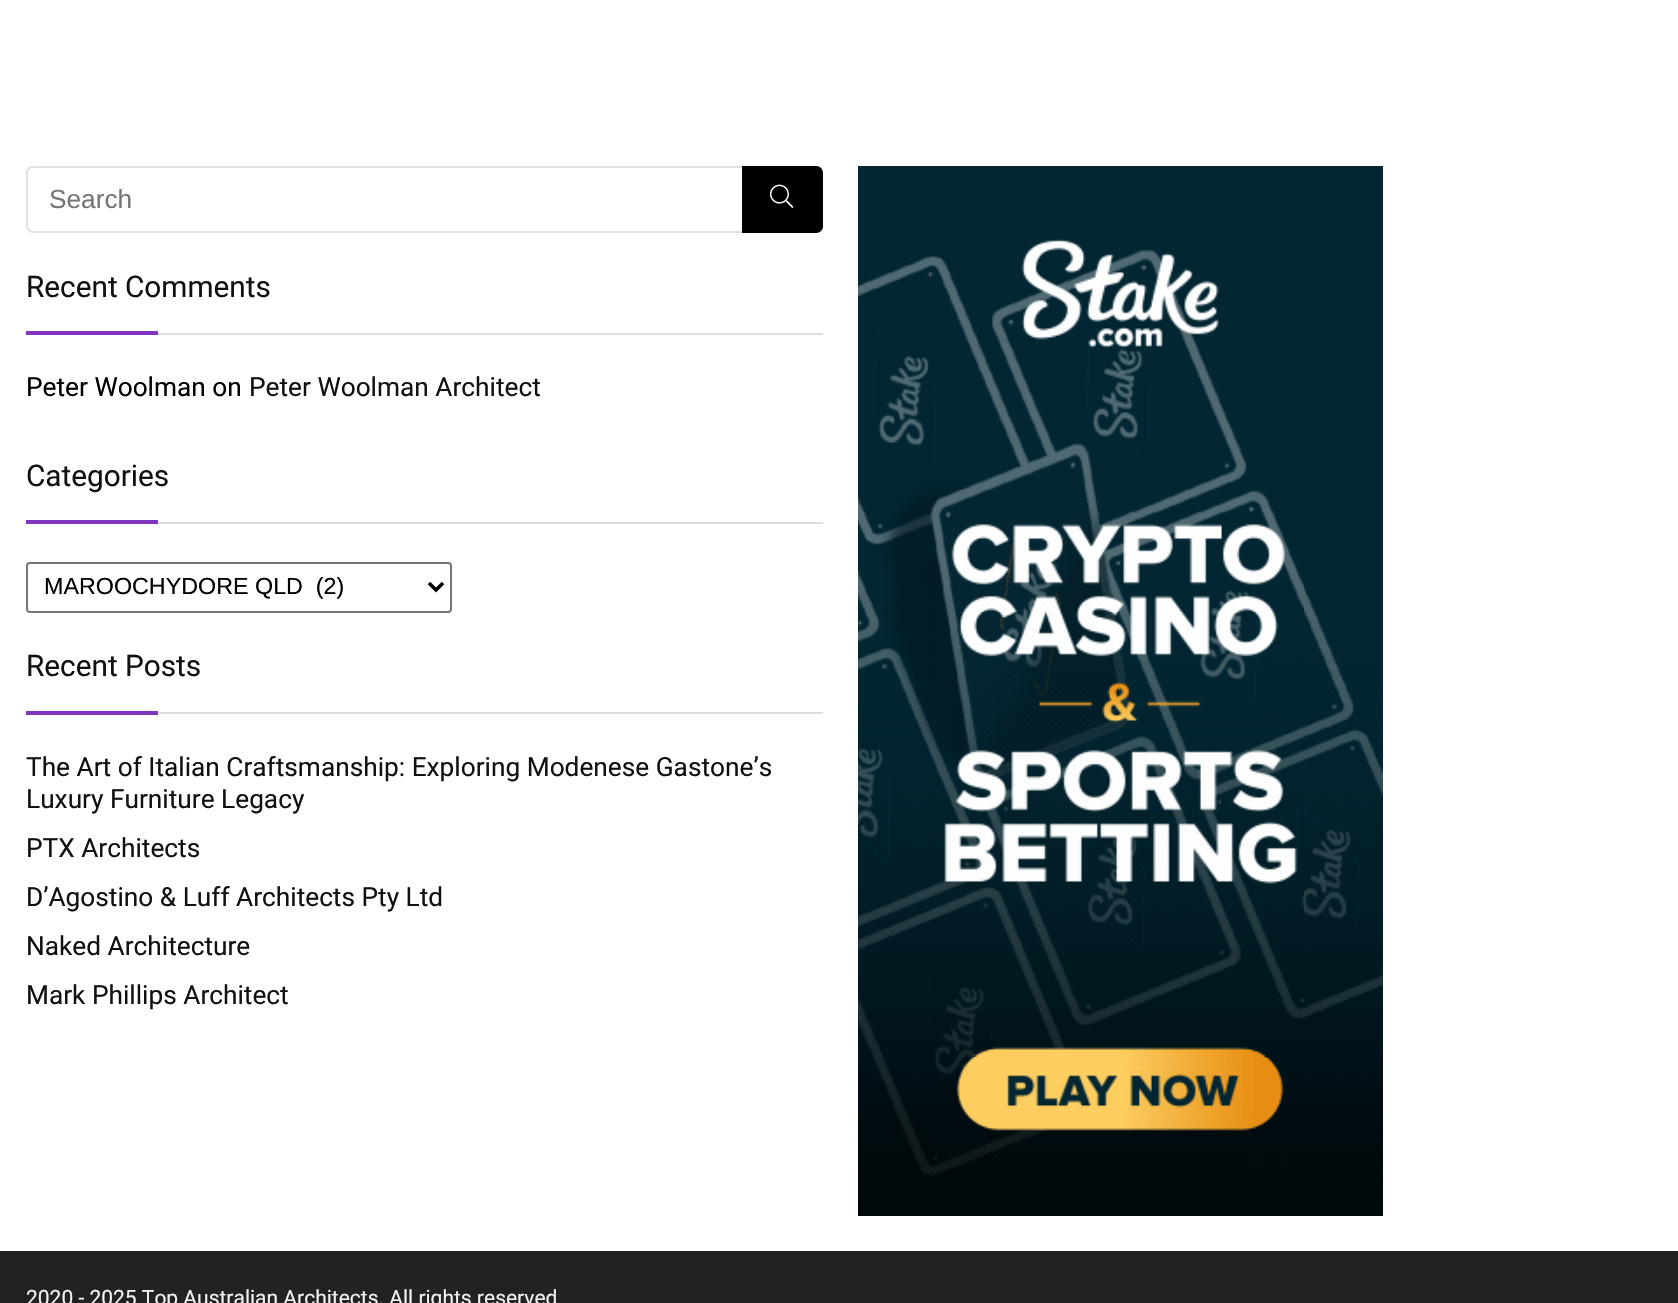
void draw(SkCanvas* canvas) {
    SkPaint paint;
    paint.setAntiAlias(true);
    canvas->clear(0xFFFFFFFF);
    paint.setStyle(SkPaint::kStroke_Style);
    paint.setStrokeWidth(2);
    paint.setColor(0xFFE1E1E1);
    canvas->drawRoundRect(SkRect::MakeXYWH(27, 167, 795, 65), 6, 6, paint);
    SkFont font1(fontMgr->matchFamilyStyle("Liberation Sans", SkFontStyle::Normal()), 26.25f);
    font1.setSubpixel(true);
    paint.setStyle(SkPaint::kFill_Style);
    paint.setColor(0xFF757575);
    canvas->drawString("Search", 49, 208, font1, paint);
    paint.setColor(0xFF000000);
    canvas->drawPath(SkPathBuilder().moveTo(742, 166).lineTo(816, 166).cubicTo(820, 166, 823, 169, 823, 173).lineTo(823, 226).cubicTo(823, 230, 820, 233, 816, 233).lineTo(742, 233).close().detach(), paint);
    canvas->drawImageRect(SkImages::DeferredFromEncodedData(SkData::MakeFromFileName("img1.png")), SkRect::MakeXYWH(770, 184, 24, 24), SkSamplingOptions());
    canvas->drawImageRect(SkImages::DeferredFromEncodedData(SkData::MakeFromFileName("img2.png")), SkRect::MakeXYWH(858, 166, 525, 1050), SkSamplingOptions());
    paint.setColor(0xFFDDDDDD);
    canvas->drawRect(SkRect::MakeXYWH(158, 333, 665, 2), paint);
    SkFont font2(fontMgr->matchFamilyStyle("Roboto", SkFontStyle::Normal()), 29.75f);
    font2.setSubpixel(true);
    paint.setColor(0xFF111111);
    canvas->drawString("Recent Comments", 26, 297, font2, paint);
    paint.setColor(0xFF8035BE);
    canvas->drawRect(SkRect::MakeXYWH(26, 331, 132, 4), paint);
    SkFont font3(fontMgr->matchFamilyStyle("Roboto", SkFontStyle::Normal()), 26.25f);
    font3.setSubpixel(true);
    paint.setColor(0xFF000000);
    canvas->drawString("Peter Woolman on", 26, 396, font3, paint);
    paint.setColor(0xFF111111);
    canvas->drawString("Peter Woolman Architect", 249, 396, font3, paint);
    paint.setColor(0xFFDDDDDD);
    canvas->drawRect(SkRect::MakeXYWH(158, 522, 665, 2), paint);
    paint.setColor(0xFF111111);
    canvas->drawString("Categories", 26, 486, font2, paint);
    paint.setColor(0xFF8035BE);
    canvas->drawRect(SkRect::MakeXYWH(26, 520, 132, 4), paint);
    paint.setStyle(SkPaint::kStroke_Style);
    paint.setColor(0xFF767676);
    canvas->drawRoundRect(SkRect::MakeXYWH(27, 563, 424, 49), 3, 3, paint);
    paint.setStrokeWidth(3.5f);
    paint.setColor(0xFF000000);
    canvas->drawPath(SkPathBuilder().moveTo(429, 583).lineTo(436, 590).lineTo(443, 583).detach(), paint);
    SkFont font4(fontMgr->matchFamilyStyle("Liberation Sans", SkFontStyle::Normal()), 23.3f);
    font4.setSubpixel(true);
    paint.setStyle(SkPaint::kFill_Style);
    canvas->drawString("MAROOCHYDORE QLD  (2)", 44, 594, font4, paint);
    paint.setColor(0xFFDDDDDD);
    canvas->drawRect(SkRect::MakeXYWH(158, 712, 665, 2), paint);
    paint.setColor(0xFF111111);
    canvas->drawString("Recent Posts", 26, 676, font2, paint);
    paint.setColor(0xFF8035BE);
    canvas->drawRect(SkRect::MakeXYWH(26, 711, 132, 4), paint);
    paint.setColor(0xFF111111);
    canvas->drawString("The Art of Italian Craftsmanship: Exploring Modenese Gastone’s", 26, 776, font3, paint);
    canvas->drawString("Luxury Furniture Legacy", 26, 808, font3, paint);
    canvas->drawString("PTX Architects", 26, 857, font3, paint);
    canvas->drawString("D’Agostino & Luff Architects Pty Ltd", 26, 906, font3, paint);
    canvas->drawString("Naked Architecture", 26, 955, font3, paint);
    canvas->drawString("Mark Phillips Architect", 26, 1004, font3, paint);
    paint.setColor(0xFF222222);
    canvas->drawRect(SkRect::MakeXYWH(0, 1251, 1678, 52), paint);
    SkFont font5(fontMgr->matchFamilyStyle("Roboto", SkFontStyle::Normal()), 21);
    font5.setSubpixel(true);
    paint.setColor(0xFFF1F1F1);
    canvas->drawString("2020 - 2025 Top Australian Architects. All rights reserved", 26, 1305, font5, paint);
}
